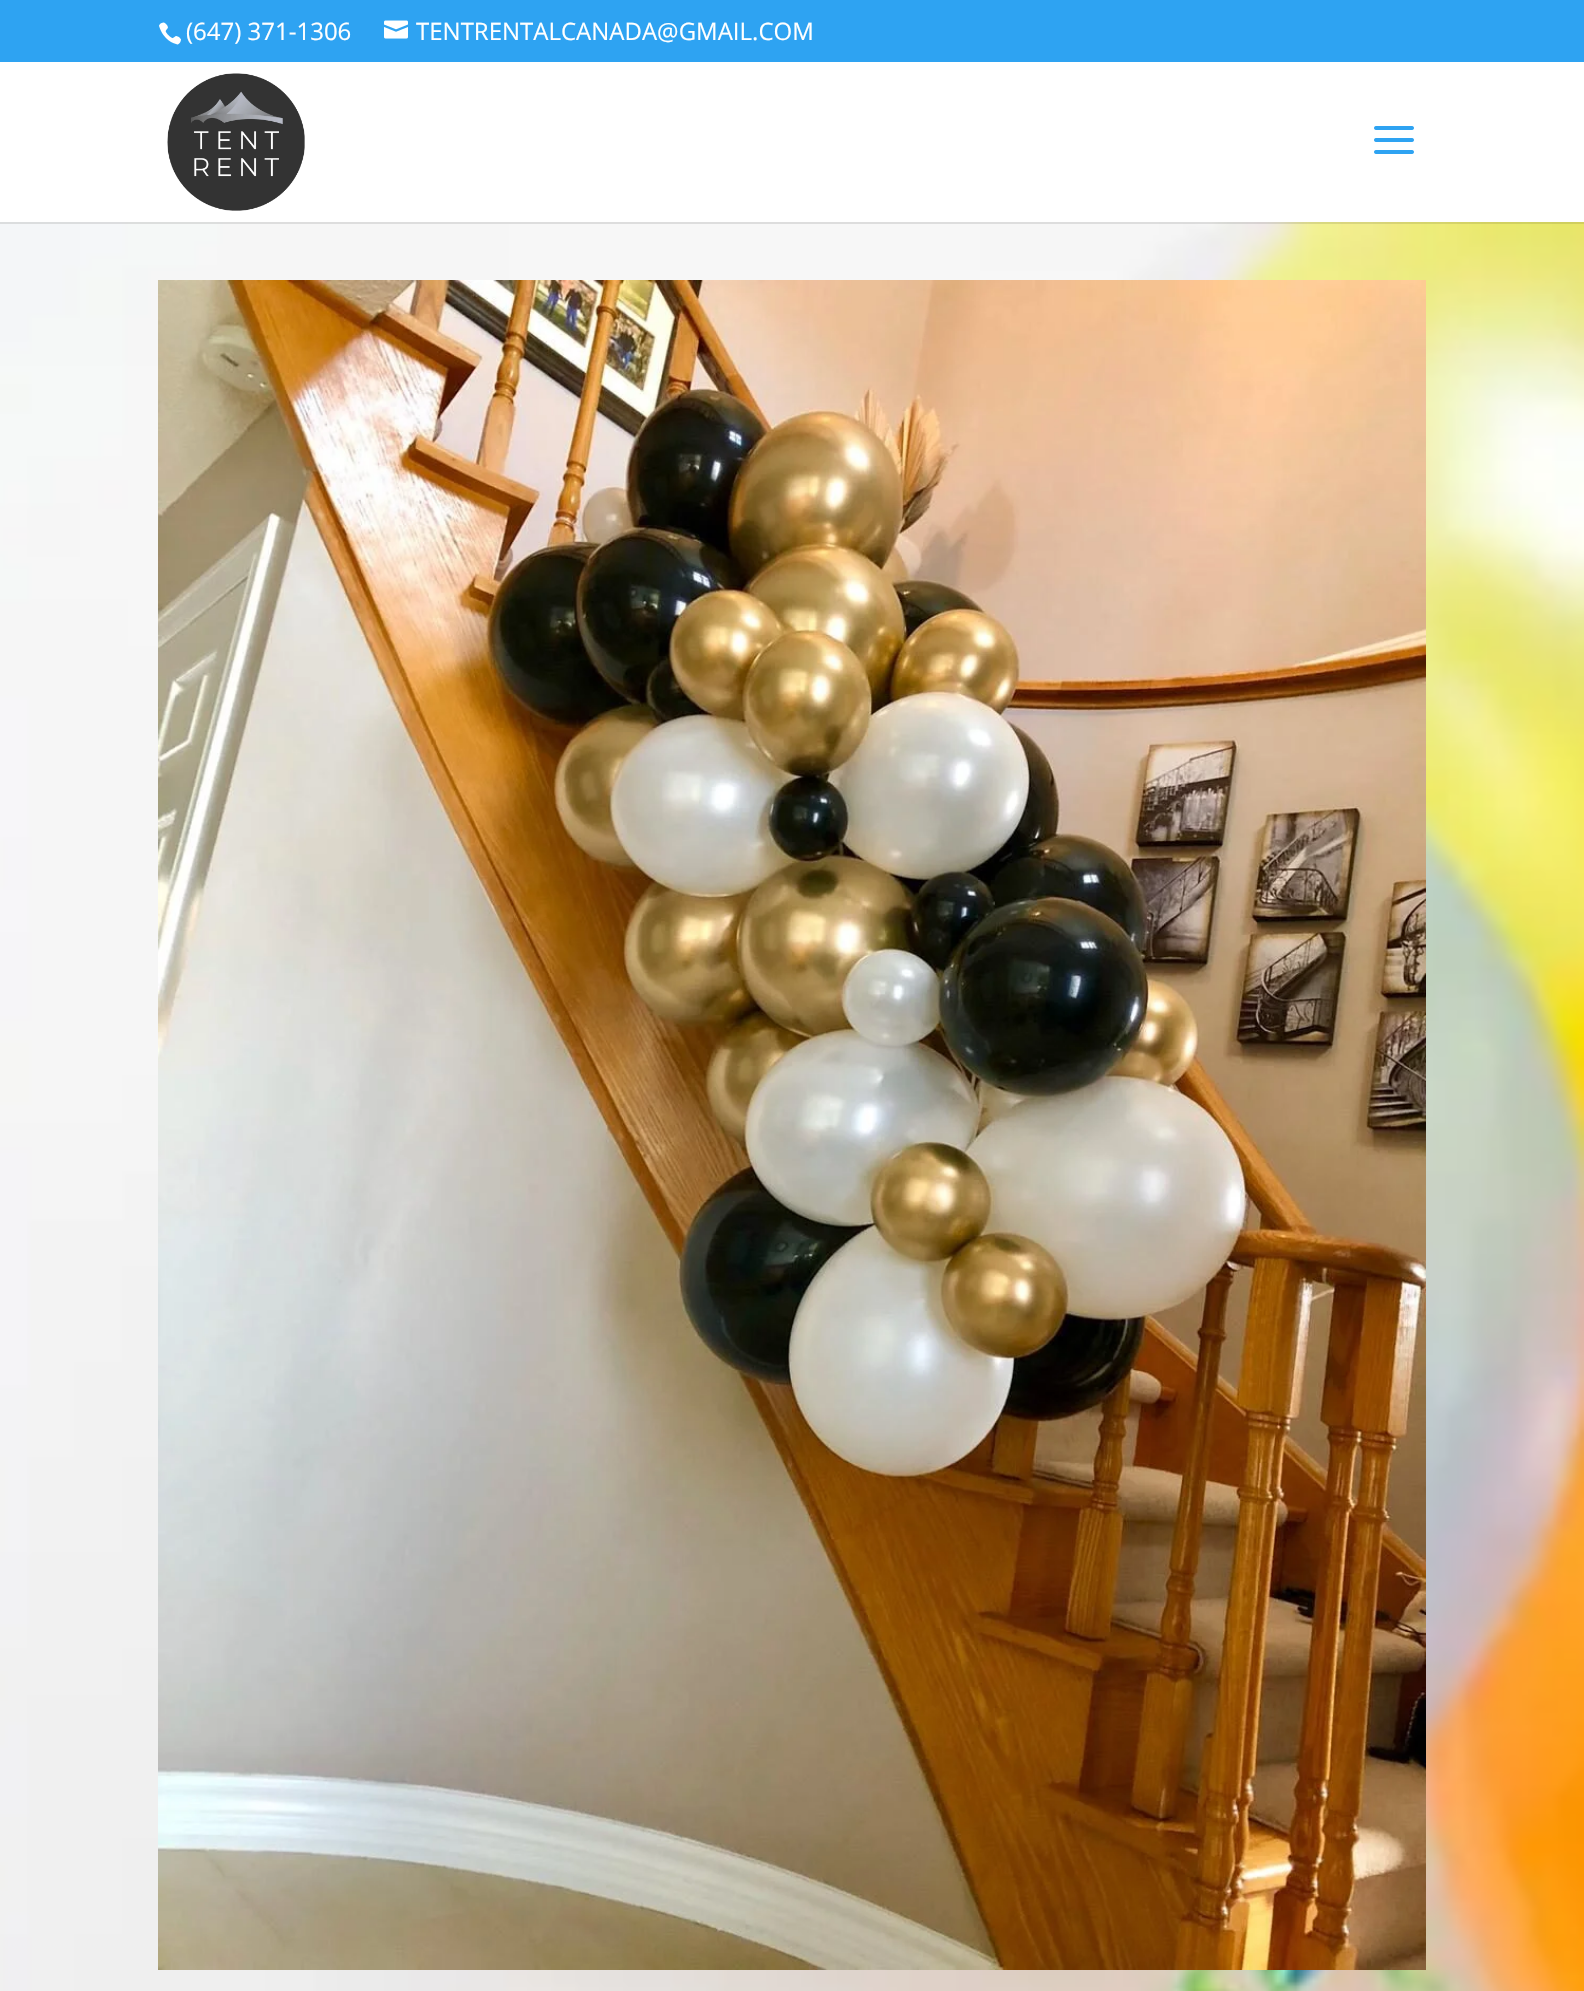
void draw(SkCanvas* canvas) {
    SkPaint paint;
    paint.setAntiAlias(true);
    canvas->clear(0xFFFFFFFF);
    paint.setColor(0xFF2EA3F2);
    canvas->drawRect(SkRect::MakeXYWH(0, 0, 1584, 62), paint);
    canvas->drawImageRect(SkImages::DeferredFromEncodedData(SkData::MakeFromFileName("img1.png")), SkRect::MakeXYWH(159, 22, 22, 23), SkSamplingOptions());
    SkFont font1(fontMgr->matchFamilyStyle("Open Sans", SkFontStyle::Normal()), 24);
    font1.setSubpixel(true);
    paint.setColor(0xFFFFFFFF);
    canvas->drawString("(647) 371-1306", 186, 40, font1, paint);
    canvas->drawImageRect(SkImages::DeferredFromEncodedData(SkData::MakeFromFileName("img2.png")), SkRect::MakeXYWH(384, 20, 24, 19), SkSamplingOptions());
    canvas->drawString("TENTRENTALCANADA@GMAIL.COM", 416, 40, font1, paint);
    canvas->drawImageRect(SkImages::DeferredFromEncodedData(SkData::MakeFromFileName("img5.png")), SkRect::MakeXYWH(0, 222, 1584, 1769), SkSamplingOptions());
    paint.setColor(0x1A000000);
    canvas->drawRect(SkRect::MakeXYWH(0, 222, 1584, 2), paint);
    canvas->drawImageRect(SkImages::DeferredFromEncodedData(SkData::MakeFromFileName("img3.png")), SkRect::MakeXYWH(167, 73, 138, 138), SkSamplingOptions());
    canvas->drawImageRect(SkImages::DeferredFromEncodedData(SkData::MakeFromFileName("img4.png")), SkRect::MakeXYWH(1374, 126, 40, 28), SkSamplingOptions());
    canvas->drawImageRect(SkImages::DeferredFromEncodedData(SkData::MakeFromFileName("img6.png")), SkRect::MakeXYWH(158, 280, 1268, 1690), SkSamplingOptions());
}
